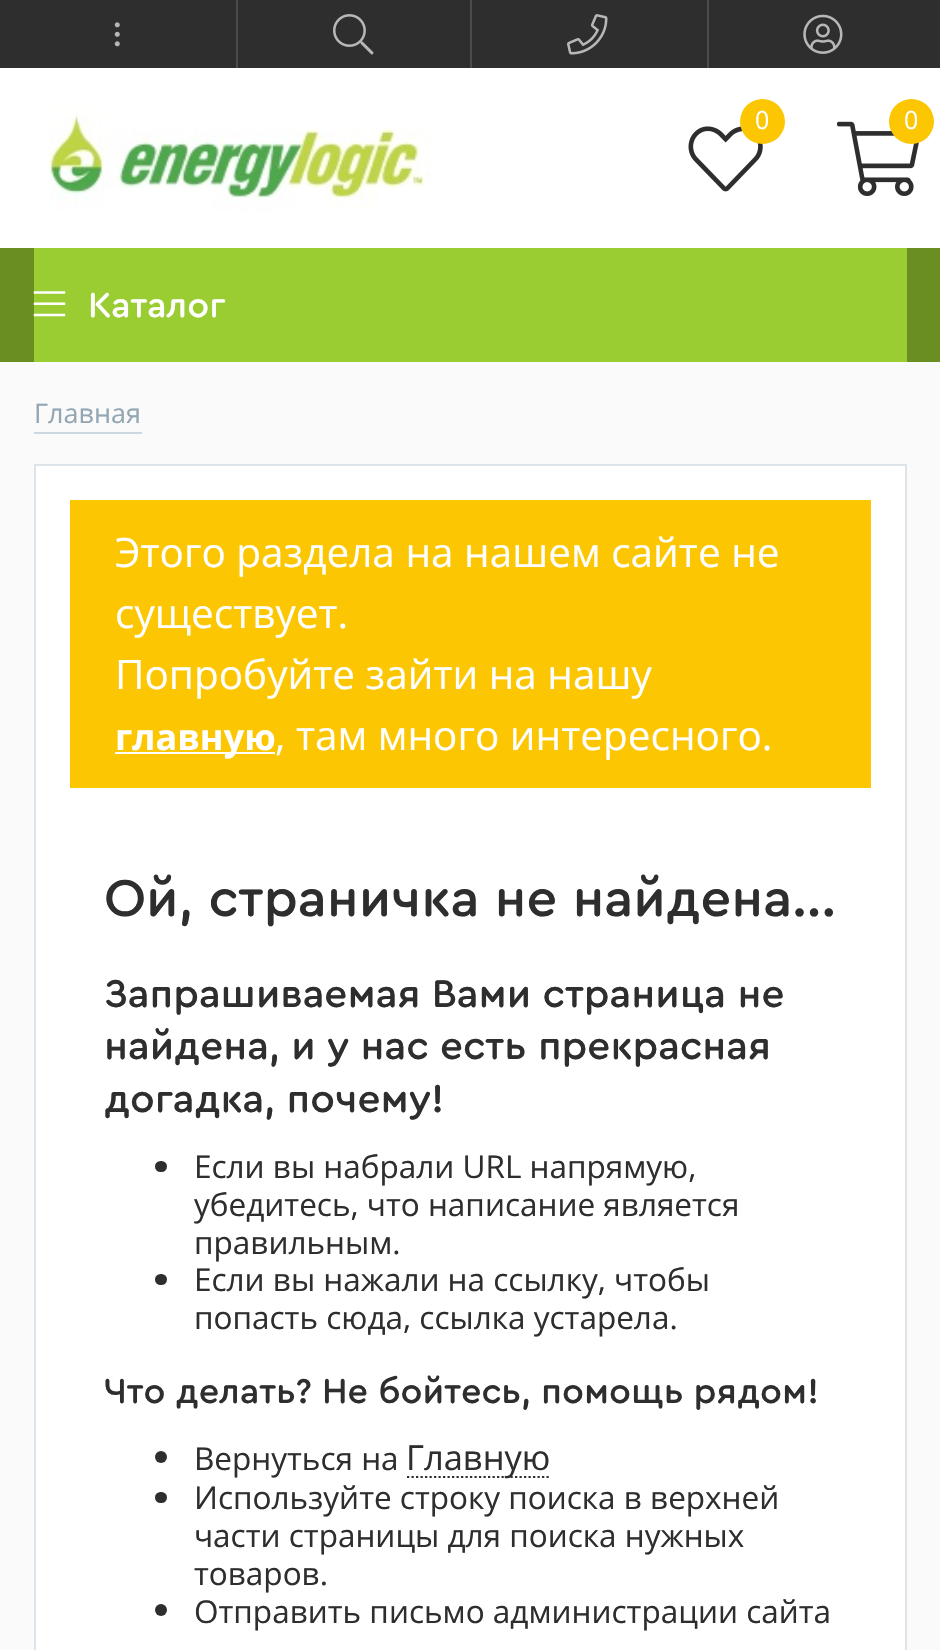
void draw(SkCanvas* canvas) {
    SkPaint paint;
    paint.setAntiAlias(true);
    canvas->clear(0xFFFAFAFA);
    paint.setColor(0xFF2E2E2E);
    canvas->drawRect(SkRect::MakeXYWH(0, 0, 940, 68), paint);
    canvas->drawImageRect(SkImages::DeferredFromEncodedData(SkData::MakeFromFileName("img1.png")), SkRect::MakeXYWH(114, 22, 6, 25), SkSamplingOptions());
    paint.setColor(0xFF4C4C4C);
    canvas->drawRect(SkRect::MakeXYWH(236, 0, 2, 68), paint);
    canvas->drawImageRect(SkImages::DeferredFromEncodedData(SkData::MakeFromFileName("img2.png")), SkRect::MakeXYWH(333, 14, 41, 41), SkSamplingOptions());
    canvas->drawRect(SkRect::MakeXYWH(470, 0, 2, 68), paint);
    canvas->drawImageRect(SkImages::DeferredFromEncodedData(SkData::MakeFromFileName("img3.png")), SkRect::MakeXYWH(567, 14, 41, 41), SkSamplingOptions());
    canvas->drawRect(SkRect::MakeXYWH(707, 0, 2, 68), paint);
    canvas->drawImageRect(SkImages::DeferredFromEncodedData(SkData::MakeFromFileName("img4.png")), SkRect::MakeXYWH(803, 14, 40, 40), SkSamplingOptions());
    paint.setColor(0xFFFFFFFF);
    canvas->drawRect(SkRect::MakeXYWH(0, 68, 940, 180), paint);
    canvas->drawImageRect(SkImages::DeferredFromEncodedData(SkData::MakeFromFileName("img5.png")), SkRect::MakeXYWH(48, 103, 383, 110), SkSamplingOptions());
    canvas->drawImageRect(SkImages::DeferredFromEncodedData(SkData::MakeFromFileName("img6.png")), SkRect::MakeXYWH(688, 126, 75, 66), SkSamplingOptions());
    paint.setColor(0xFFFCC602);
    canvas->drawCircle(762.5f, 121.5f, 22.5f, paint);
    SkFont font1(fontMgr->matchFamilyStyle("Open Sans", SkFontStyle::Normal()), 25);
    font1.setSubpixel(true);
    paint.setColor(0xFFFFFFFF);
    canvas->drawString("0", 755, 129, font1, paint);
    canvas->drawImageRect(SkImages::DeferredFromEncodedData(SkData::MakeFromFileName("img7.png")), SkRect::MakeXYWH(837, 121, 82, 75), SkSamplingOptions());
    paint.setColor(0xFFFCC602);
    canvas->drawCircle(911.5f, 121.5f, 22.5f, paint);
    paint.setColor(0xFFFFFFFF);
    canvas->drawString("0", 904, 129, font1, paint);
    paint.setColor(0xFF6B8E23);
    canvas->drawRect(SkRect::MakeXYWH(0, 248, 940, 114), paint);
    paint.setColor(0xFF9ACD32);
    canvas->drawRect(SkRect::MakeXYWH(34, 248, 873, 114), paint);
    canvas->drawImageRect(SkImages::DeferredFromEncodedData(SkData::MakeFromFileName("img8.png")), SkRect::MakeXYWH(33, 291, 33, 26), SkSamplingOptions());
    SkFont font2(fontMgr->matchFamilyStyle("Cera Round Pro", SkFontStyle(500, SkFontStyle::kNormal_Width, SkFontStyle::kUpright_Slant)), 36);
    font2.setSubpixel(true);
    paint.setColor(0xFFFFFFFF);
    canvas->drawString("Каталог", 88, 317, font2, paint);
    SkFont font3(fontMgr->matchFamilyStyle("Open Sans", SkFontStyle::Normal()), 27);
    font3.setSubpixel(true);
    paint.setColor(0xFF93A6B3);
    canvas->drawString("Главная", 34, 423, font3, paint);
    paint.setColor(0xFFCCD8DF);
    canvas->drawRect(SkRect::MakeXYWH(34, 432, 108, 2), paint);
    paint.setColor(0xFFFFFFFF);
    canvas->drawRect(SkRect::MakeXYWH(35, 465, 871, 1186), paint);
    paint.setStyle(SkPaint::kStroke_Style);
    paint.setStrokeWidth(2);
    paint.setColor(0xFFDCE4E9);
    canvas->drawRect(SkRect::MakeXYWH(35, 465, 871, 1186), paint);
    paint.setStyle(SkPaint::kFill_Style);
    paint.setColor(0xFFFCC602);
    canvas->drawRect(SkRect::MakeXYWH(70, 500, 801, 288), paint);
    SkFont font4(fontMgr->matchFamilyStyle("Open Sans", SkFontStyle::Normal()), 40.5f);
    font4.setSubpixel(true);
    paint.setColor(0xFFFFFFFF);
    canvas->drawString("Этого раздела на нашем сайте не", 115, 567, font4, paint);
    canvas->drawString("существует.", 115, 628, font4, paint);
    canvas->drawString("Попробуйте зайти на нашу", 115, 689, font4, paint);
    canvas->drawRect(SkRect::MakeXYWH(115, 752, 160, 2), paint);
    SkFont font5(fontMgr->matchFamilyStyle("Open Sans", SkFontStyle::Bold()), 36);
    font5.setSubpixel(true);
    canvas->drawString("главную", 115, 750, font5, paint);
    canvas->drawString(", там много интересного.", 275, 750, font4, paint);
    SkFont font6(fontMgr->matchFamilyStyle("Cera Round Pro", SkFontStyle(500, SkFontStyle::kNormal_Width, SkFontStyle::kUpright_Slant)), 54);
    font6.setSubpixel(true);
    paint.setColor(0xFF2E2E2E);
    canvas->drawString("Ой, страничка не найдена...", 104, 916, font6, paint);
    SkFont font7(fontMgr->matchFamilyStyle("Cera Round Pro", SkFontStyle(500, SkFontStyle::kNormal_Width, SkFontStyle::kUpright_Slant)), 40.5f);
    font7.setSubpixel(true);
    canvas->drawString("Запрашиваемая Вами страница не", 104, 1007, font7, paint);
    canvas->drawString("найдена, и у нас есть прекрасная", 104, 1059, font7, paint);
    canvas->drawString("догадка, почему!", 104, 1112, font7, paint);
    canvas->drawRoundRect(SkRect::MakeXYWH(155, 1161, 12, 11), 5.5f, 5.5f, paint);
    SkFont font8(fontMgr->matchFamilyStyle("Open Sans", SkFontStyle::Normal()), 31.5f);
    font8.setSubpixel(true);
    canvas->drawString("Если вы набрали URL напрямую,", 194, 1178, font8, paint);
    canvas->drawString("убедитесь, что написание является", 194, 1216, font8, paint);
    canvas->drawString("правильным.", 194, 1254, font8, paint);
    canvas->drawRoundRect(SkRect::MakeXYWH(155, 1274, 12, 11), 5.5f, 5.5f, paint);
    canvas->drawString("Если вы нажали на ссылку, чтобы", 194, 1291, font8, paint);
    canvas->drawString("попасть сюда, ссылка устарела.", 194, 1329, font8, paint);
    canvas->drawString("Что делать? Не бойтесь, помощь рядом!", 104, 1403, font2, paint);
    canvas->drawCircle(161, 1457, 6, paint);
    canvas->drawString("Вернуться на", 194, 1470, font8, paint);
    SkFont font9(fontMgr->matchFamilyStyle("Open Sans", SkFontStyle::Normal()), 34.5f);
    font9.setSubpixel(true);
    canvas->drawString("Главную", 406, 1470, font9, paint);
    paint.setStyle(SkPaint::kStroke_Style);
    paint.setStrokeWidth(2.2f);
    paint.setPathEffect(SkDashPathEffect::Make({{2.25f, 2.25f}}, 0));
    canvas->drawPath(SkPathBuilder().moveTo(407, 1477).lineTo(551, 1477).detach(), paint);
    paint.setPathEffect(nullptr);
    paint.setStyle(SkPaint::kFill_Style);
    canvas->drawRoundRect(SkRect::MakeXYWH(155, 1492, 12, 11), 5.5f, 5.5f, paint);
    canvas->drawString("Используйте строку поиска в верхней", 194, 1509, font8, paint);
    canvas->drawString("части страницы для поиска нужных", 194, 1547, font8, paint);
    canvas->drawString("товаров.", 194, 1585, font8, paint);
    canvas->drawCircle(161, 1610, 6, paint);
    canvas->drawString("Отправить письмо админиcтрации сайта", 194, 1623, font8, paint);
}
